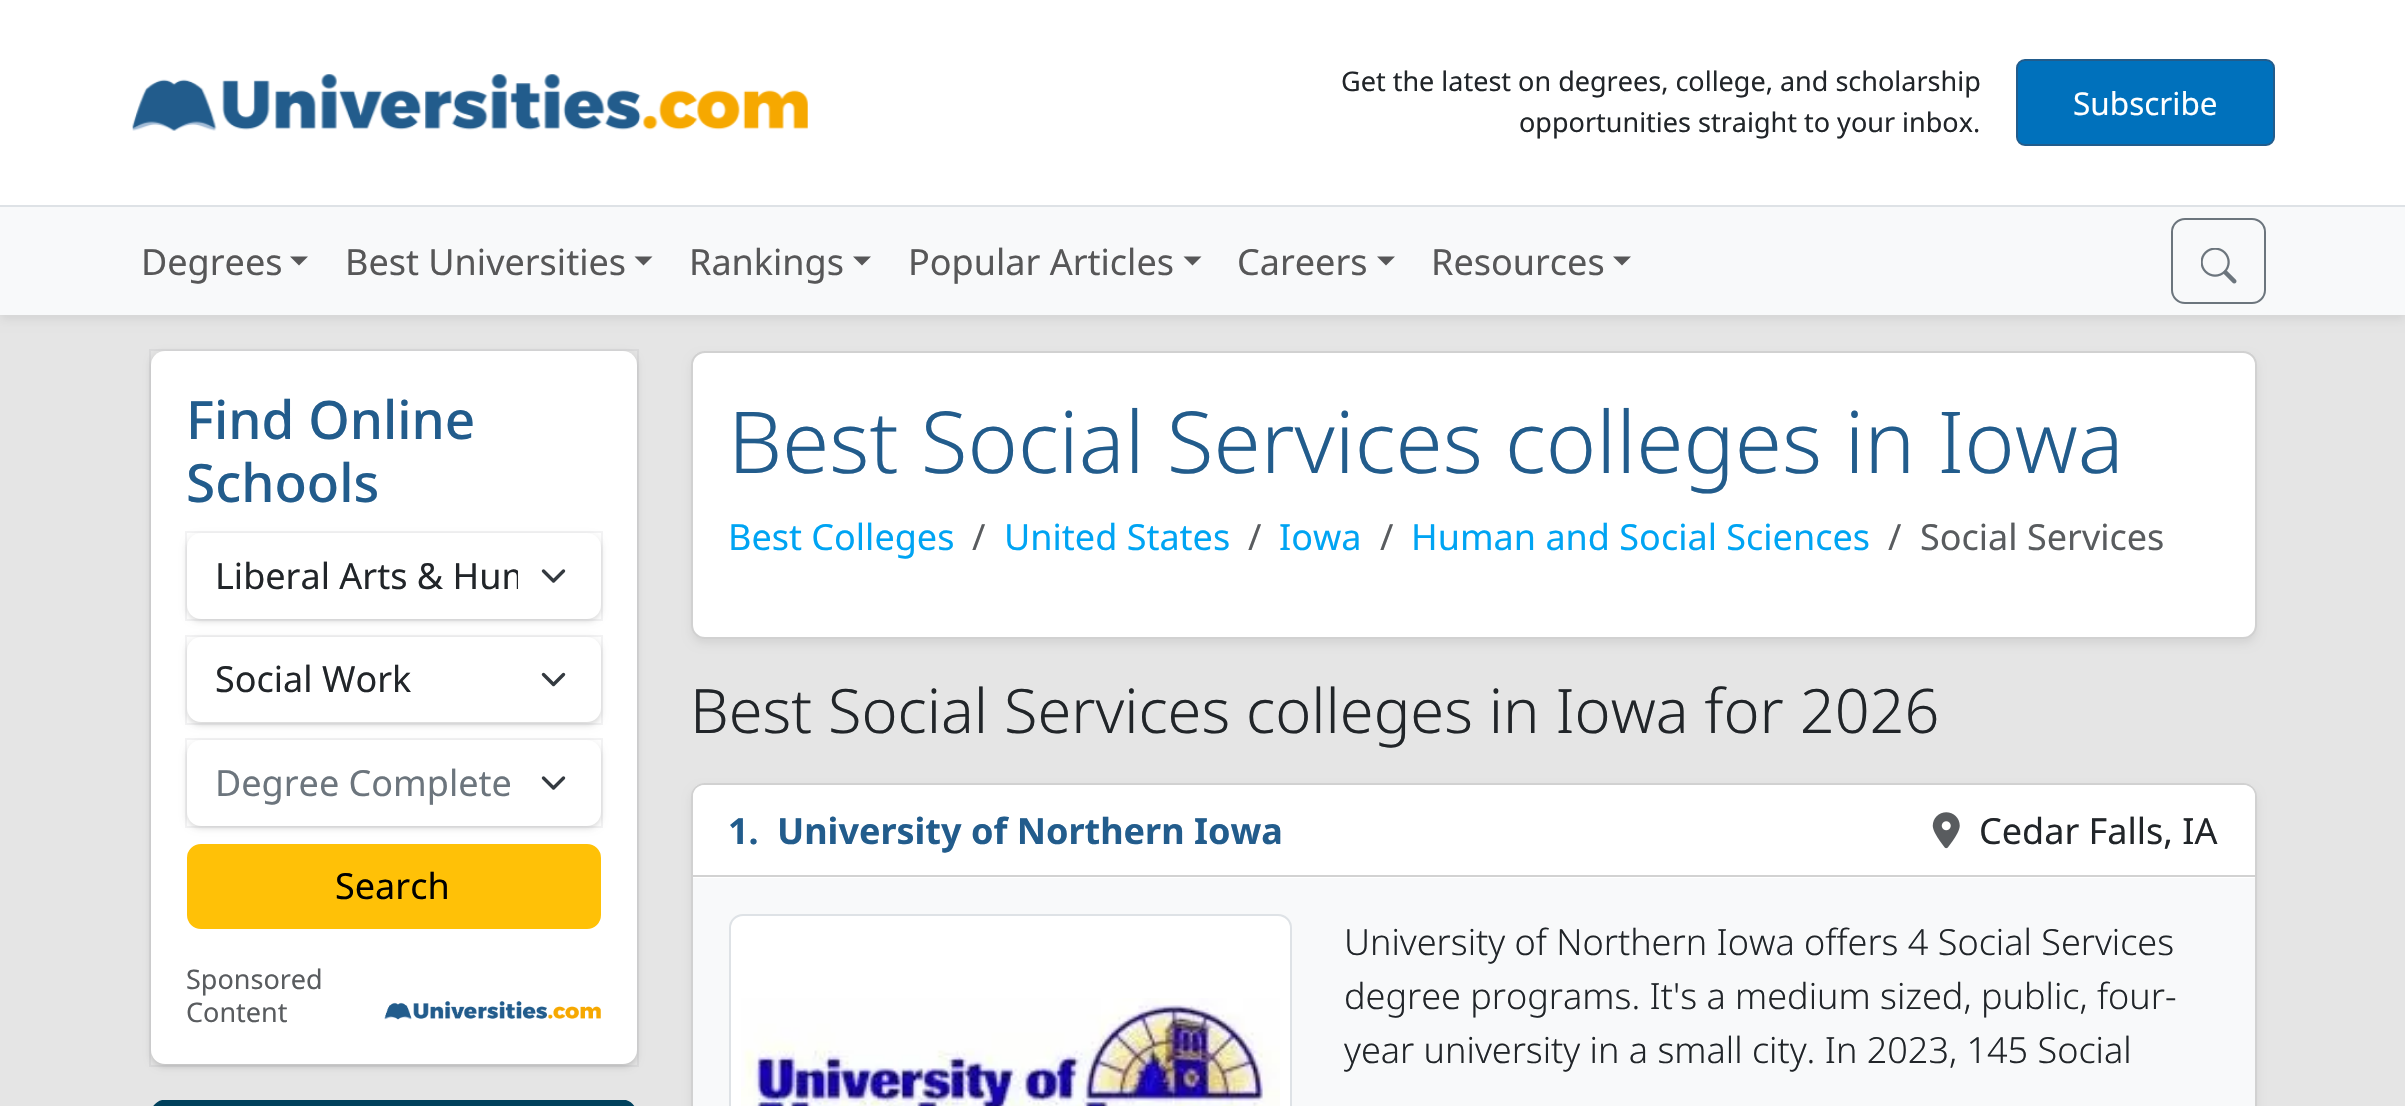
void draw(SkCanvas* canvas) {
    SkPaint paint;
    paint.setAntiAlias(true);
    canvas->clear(0xFFE5E5E5);
    paint.setColor(0x12000000);
    paint.setMaskFilter(SkMaskFilter::MakeBlur(kNormal_SkBlurStyle, 4.5f));
    canvas->drawRect(SkRect::MakeXYWH(0, 212, 2405, 108), paint);
    paint.setMaskFilter(nullptr);
    paint.setColor(0xFFFFFFFF);
    canvas->drawRect(SkRect::MakeXYWH(0, 0, 2405, 205), paint);
    paint.setColor(0xFFDEE2E6);
    canvas->drawRect(SkRect::MakeXYWH(0, 205, 2405, 2), paint);
    canvas->drawImageRect(SkImages::DeferredFromEncodedData(SkData::MakeFromFileName("img1.png")), SkRect::MakeXYWH(132, 74, 676, 57), SkSamplingOptions());
    SkFont font1(fontMgr->matchFamilyStyle("Noto Sans", SkFontStyle::Normal()), 27);
    font1.setSubpixel(true);
    paint.setColor(0xFF212529);
    canvas->drawString("Get the latest on degrees, college, and scholarship", 1341, 91, font1, paint);
    canvas->drawString("opportunities straight to your inbox.", 1519, 132, font1, paint);
    paint.setColor(0xFF0071BC);
    canvas->drawRoundRect(SkRect::MakeXYWH(2017, 60, 257, 85), 8, 8, paint);
    paint.setStyle(SkPaint::kStroke_Style);
    paint.setStrokeWidth(2);
    paint.setColor(0xFF225C8C);
    canvas->drawRoundRect(SkRect::MakeXYWH(2017, 60, 257, 85), 8, 8, paint);
    SkFont font2(fontMgr->matchFamilyStyle("Noto Sans", SkFontStyle::Normal()), 31.5f);
    font2.setSubpixel(true);
    paint.setStyle(SkPaint::kFill_Style);
    paint.setColor(0xFFFFFFFF);
    canvas->drawString("Subscribe", 2073, 115, font2, paint);
    paint.setColor(0xFFF8F9FA);
    canvas->drawRect(SkRect::MakeXYWH(0, 207, 2405, 108), paint);
    SkFont font3(fontMgr->matchFamilyStyle("Noto Sans", SkFontStyle::Normal()), 36);
    font3.setSubpixel(true);
    paint.setColor(0xFF575758);
    canvas->drawString("Degrees", 141, 275, font3, paint);
    canvas->drawPath(SkPathBuilder().moveTo(290, 256.5f).lineTo(308, 256.5f).lineTo(299, 265.5f).close().detach(), paint);
    canvas->drawString("Best Universities", 345, 275, font3, paint);
    canvas->drawPath(SkPathBuilder().moveTo(634.5f, 256.5f).lineTo(652.5f, 256.5f).lineTo(643.5f, 265.5f).close().detach(), paint);
    canvas->drawString("Rankings", 689, 275, font3, paint);
    canvas->drawPath(SkPathBuilder().moveTo(853, 256.5f).lineTo(871, 256.5f).lineTo(862, 265.5f).close().detach(), paint);
    canvas->drawString("Popular Articles", 908, 275, font3, paint);
    canvas->drawPath(SkPathBuilder().moveTo(1183.5f, 256.5f).lineTo(1201.5f, 256.5f).lineTo(1192.5f, 265.5f).close().detach(), paint);
    canvas->drawString("Careers", 1237, 275, font3, paint);
    canvas->drawPath(SkPathBuilder().moveTo(1377, 256.5f).lineTo(1395, 256.5f).lineTo(1386, 265.5f).close().detach(), paint);
    canvas->drawString("Resources", 1431, 275, font3, paint);
    canvas->drawPath(SkPathBuilder().moveTo(1613, 256.5f).lineTo(1631, 256.5f).lineTo(1622, 265.5f).close().detach(), paint);
    paint.setStyle(SkPaint::kStroke_Style);
    paint.setColor(0xFF6C757D);
    canvas->drawRoundRect(SkRect::MakeXYWH(2172, 219, 93, 84), 13, 13, paint);
    canvas->drawImageRect(SkImages::DeferredFromEncodedData(SkData::MakeFromFileName("img2.png")), SkRect::MakeXYWH(2201, 248, 36, 36), SkSamplingOptions());
    paint.setStyle(SkPaint::kFill_Style);
    paint.setColor(0x0F000000);
    paint.setMaskFilter(SkMaskFilter::MakeBlur(kNormal_SkBlurStyle, 2));
    canvas->drawRoundRect(SkRect::MakeXYWH(151, 353, 486, 714), 14, 14, paint);
    paint.setMaskFilter(nullptr);
    paint.setColor(0x1A000000);
    paint.setMaskFilter(SkMaskFilter::MakeBlur(kNormal_SkBlurStyle, 3.5f));
    canvas->drawRoundRect(SkRect::MakeXYWH(151, 353, 486, 714), 14, 14, paint);
    paint.setMaskFilter(nullptr);
    paint.setStyle(SkPaint::kStroke_Style);
    paint.setColor(0x0D111827);
    canvas->drawRect(SkRect::MakeXYWH(150, 350, 488, 716), paint);
    paint.setStyle(SkPaint::kFill_Style);
    paint.setColor(0xFFFFFFFF);
    canvas->drawRoundRect(SkRect::MakeXYWH(151, 351, 486, 713), 14, 14, paint);
    SkFont font4(fontMgr->matchFamilyStyle("Noto Sans", SkFontStyle(500, SkFontStyle::kNormal_Width, SkFontStyle::kUpright_Slant)), 53);
    font4.setSubpixel(true);
    paint.setColor(0xFF225C8C);
    canvas->drawString("Find Online", 186, 439, font4, paint);
    canvas->drawString("Schools", 186, 502, font4, paint);
    paint.setColor(0x0F000000);
    paint.setMaskFilter(SkMaskFilter::MakeBlur(kNormal_SkBlurStyle, 2));
    canvas->drawRoundRect(SkRect::MakeXYWH(187, 536, 414, 85), 14, 14, paint);
    paint.setMaskFilter(nullptr);
    paint.setColor(0x1A000000);
    paint.setMaskFilter(SkMaskFilter::MakeBlur(kNormal_SkBlurStyle, 3.5f));
    canvas->drawRoundRect(SkRect::MakeXYWH(187, 536, 414, 85), 14, 14, paint);
    paint.setMaskFilter(nullptr);
    paint.setStyle(SkPaint::kStroke_Style);
    paint.setColor(0x0D111827);
    canvas->drawRect(SkRect::MakeXYWH(186, 532, 416, 88), paint);
    paint.setStyle(SkPaint::kFill_Style);
    paint.setColor(0xFFFFFFFF);
    canvas->drawRoundRect(SkRect::MakeXYWH(187, 533, 414, 86), 14, 14, paint);
    paint.setStyle(SkPaint::kStroke_Style);
    paint.setStrokeWidth(3.4f);
    paint.setStrokeCap(SkPaint::kRound_Cap);
    paint.setStrokeJoin(SkPaint::kRound_Join);
    paint.setColor(0xFF343A40);
    canvas->drawPath(SkPathBuilder().moveTo(543.5f, 571).lineTo(553.5f, 581).lineTo(563.5f, 571).detach(), paint);
    canvas->save();
    canvas->clipRect(SkRect::MakeXYWH(216, 549, 302, 54));
    paint.setStyle(SkPaint::kFill_Style);
    paint.setColor(0xFF212529);
    canvas->drawString("Liberal Arts & Hum", 215, 589, font3, paint);
    canvas->restore();
    paint.setColor(0x0F000000);
    paint.setMaskFilter(SkMaskFilter::MakeBlur(kNormal_SkBlurStyle, 2));
    canvas->drawRoundRect(SkRect::MakeXYWH(187, 639, 414, 86), 14, 14, paint);
    paint.setMaskFilter(nullptr);
    paint.setColor(0x1A000000);
    paint.setMaskFilter(SkMaskFilter::MakeBlur(kNormal_SkBlurStyle, 3.5f));
    canvas->drawRoundRect(SkRect::MakeXYWH(187, 639, 414, 86), 14, 14, paint);
    paint.setMaskFilter(nullptr);
    paint.setStyle(SkPaint::kStroke_Style);
    paint.setStrokeWidth(2);
    paint.setStrokeCap(SkPaint::kButt_Cap);
    paint.setStrokeJoin(SkPaint::kMiter_Join);
    paint.setColor(0x0D111827);
    canvas->drawRect(SkRect::MakeXYWH(186, 636, 416, 88), paint);
    paint.setStyle(SkPaint::kFill_Style);
    paint.setColor(0xFFFFFFFF);
    canvas->drawRoundRect(SkRect::MakeXYWH(187, 637, 414, 85), 14, 14, paint);
    paint.setStyle(SkPaint::kStroke_Style);
    paint.setStrokeWidth(3.4f);
    paint.setStrokeCap(SkPaint::kRound_Cap);
    paint.setStrokeJoin(SkPaint::kRound_Join);
    paint.setColor(0xFF343A40);
    canvas->drawPath(SkPathBuilder().moveTo(543.5f, 674.5f).lineTo(553.5f, 684.5f).lineTo(563.5f, 674.5f).detach(), paint);
    paint.setStyle(SkPaint::kFill_Style);
    paint.setColor(0xFF212529);
    canvas->drawString("Social Work", 215, 692, font3, paint);
    paint.setColor(0x0F000000);
    paint.setMaskFilter(SkMaskFilter::MakeBlur(kNormal_SkBlurStyle, 2));
    canvas->drawRoundRect(SkRect::MakeXYWH(187, 743, 414, 85), 14, 14, paint);
    paint.setMaskFilter(nullptr);
    paint.setColor(0x1A000000);
    paint.setMaskFilter(SkMaskFilter::MakeBlur(kNormal_SkBlurStyle, 3.5f));
    canvas->drawRoundRect(SkRect::MakeXYWH(187, 743, 414, 85), 14, 14, paint);
    paint.setMaskFilter(nullptr);
    paint.setStyle(SkPaint::kStroke_Style);
    paint.setStrokeWidth(2);
    paint.setStrokeCap(SkPaint::kButt_Cap);
    paint.setStrokeJoin(SkPaint::kMiter_Join);
    paint.setColor(0x0D111827);
    canvas->drawRect(SkRect::MakeXYWH(186, 739, 416, 88), paint);
    paint.setStyle(SkPaint::kFill_Style);
    paint.setColor(0xFFFFFFFF);
    canvas->drawRoundRect(SkRect::MakeXYWH(187, 740, 414, 86), 14, 14, paint);
    paint.setStyle(SkPaint::kStroke_Style);
    paint.setStrokeWidth(3.4f);
    paint.setStrokeCap(SkPaint::kRound_Cap);
    paint.setStrokeJoin(SkPaint::kRound_Join);
    paint.setColor(0xFF343A40);
    canvas->drawPath(SkPathBuilder().moveTo(543.5f, 778).lineTo(553.5f, 788).lineTo(563.5f, 778).detach(), paint);
    paint.setStyle(SkPaint::kFill_Style);
    paint.setColor(0xFF6C757D);
    canvas->drawString("Degree Complete", 215, 796, font3, paint);
    paint.setColor(0xFFFFC107);
    canvas->drawRoundRect(SkRect::MakeXYWH(188, 845, 412, 83), 13, 13, paint);
    paint.setStyle(SkPaint::kStroke_Style);
    paint.setStrokeWidth(2);
    paint.setStrokeCap(SkPaint::kButt_Cap);
    paint.setStrokeJoin(SkPaint::kMiter_Join);
    canvas->drawRoundRect(SkRect::MakeXYWH(188, 845, 412, 83), 13, 13, paint);
    paint.setStyle(SkPaint::kFill_Style);
    paint.setColor(0xFF000000);
    canvas->drawString("Search", 335, 899, font3, paint);
    paint.setColor(0xFF595C5F);
    canvas->drawString("Sponsored", 186, 989, font1, paint);
    canvas->drawString("Content", 186, 1022, font1, paint);
    canvas->drawImageRect(SkImages::DeferredFromEncodedData(SkData::MakeFromFileName("img3.png")), SkRect::MakeXYWH(384, 1001, 217, 19), SkSamplingOptions());
    paint.setColor(0xFF00415C);
    canvas->drawPath(SkPathBuilder().moveTo(164, 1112).cubicTo(159, 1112, 155, 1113, 153, 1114).lineTo(152, 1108).cubicTo(154, 1104, 158, 1101, 162, 1100).lineTo(626, 1100).cubicTo(630, 1101, 633, 1104, 635, 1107).lineTo(634, 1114).cubicTo(634, 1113, 629, 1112, 623, 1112).close().detach(), paint);
    paint.setColor(0x12000000);
    paint.setMaskFilter(SkMaskFilter::MakeBlur(kNormal_SkBlurStyle, 4.5f));
    canvas->drawRoundRect(SkRect::MakeXYWH(691, 356, 1566, 288), 14, 14, paint);
    paint.setMaskFilter(nullptr);
    paint.setColor(0xFFFFFFFF);
    canvas->drawRoundRect(SkRect::MakeXYWH(691, 351, 1566, 288), 14, 14, paint);
    paint.setStyle(SkPaint::kStroke_Style);
    paint.setColor(0x2E000000);
    canvas->drawRoundRect(SkRect::MakeXYWH(692, 352, 1564, 286), 13, 13, paint);
    SkFont font5(fontMgr->matchFamilyStyle("Noto Sans", SkFontStyle(300, SkFontStyle::kNormal_Width, SkFontStyle::kUpright_Slant)), 85.6f);
    font5.setSubpixel(true);
    paint.setStyle(SkPaint::kFill_Style);
    paint.setColor(0xFF225C8C);
    canvas->drawString("Best Social Services colleges in Iowa", 728, 473, font5, paint);
    paint.setColor(0xFF00A4F3);
    canvas->drawString("Best Colleges", 728, 550, font3, paint);
    paint.setColor(0xFF595C5F);
    canvas->drawString("/", 972, 550, font3, paint);
    paint.setColor(0xFF00A4F3);
    canvas->drawString("United States", 1004, 550, font3, paint);
    paint.setColor(0xFF595C5F);
    canvas->drawString("/", 1248, 550, font3, paint);
    paint.setColor(0xFF00A4F3);
    canvas->drawString("Iowa", 1279, 550, font3, paint);
    paint.setColor(0xFF595C5F);
    canvas->drawString("/", 1380, 550, font3, paint);
    paint.setColor(0xFF00A4F3);
    canvas->drawString("Human and Social Sciences", 1411, 550, font3, paint);
    paint.setColor(0xFF595C5F);
    canvas->drawString("/", 1888, 550, font3, paint);
    canvas->drawString("Social Services", 1920, 550, font3, paint);
    SkFont font6(fontMgr->matchFamilyStyle("Noto Sans", SkFontStyle(300, SkFontStyle::kNormal_Width, SkFontStyle::kUpright_Slant)), 61.25f);
    font6.setSubpixel(true);
    paint.setColor(0xFF212529);
    canvas->drawString("Best Social Services colleges in Iowa for 2026", 690, 733, font6, paint);
    paint.setColor(0x12000000);
    paint.setMaskFilter(SkMaskFilter::MakeBlur(kNormal_SkBlurStyle, 4.5f));
    canvas->drawRoundRect(SkRect::MakeXYWH(691, 788, 1566, 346), 14, 14, paint);
    paint.setMaskFilter(nullptr);
    paint.setColor(0xFFFFFFFF);
    canvas->drawRoundRect(SkRect::MakeXYWH(691, 783, 1566, 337), 14, 14, paint);
    paint.setStyle(SkPaint::kStroke_Style);
    paint.setColor(0x2E000000);
    canvas->drawRoundRect(SkRect::MakeXYWH(692, 784, 1564, 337), 13, 13, paint);
    paint.setStyle(SkPaint::kFill_Style);
    paint.setColor(0xFFFFFFFF);
    canvas->drawPath(SkPathBuilder().moveTo(704, 785).lineTo(2244, 785).cubicTo(2250, 785, 2255, 790, 2255, 796).lineTo(2255, 878).lineTo(693, 878).lineTo(693, 796).cubicTo(693, 790, 698, 785, 704, 785).close().detach(), paint);
    paint.setColor(0xFFD2D2D2);
    canvas->drawRect(SkRect::MakeXYWH(693, 875, 1562, 2), paint);
    SkFont font7(fontMgr->matchFamilyStyle("Noto Sans", SkFontStyle::Bold()), 36);
    font7.setSubpixel(true);
    paint.setColor(0xFF225C8C);
    canvas->drawString("1.", 728, 844, font7, paint);
    canvas->drawString("University of Northern Iowa", 777, 844, font7, paint);
    canvas->drawImageRect(SkImages::DeferredFromEncodedData(SkData::MakeFromFileName("img4.png")), SkRect::MakeXYWH(1932, 812, 28, 37), SkSamplingOptions());
    paint.setColor(0xFF212529);
    canvas->drawString("Cedar Falls, IA", 1979, 844, font3, paint);
    paint.setColor(0xFFF8F9FA);
    canvas->drawRect(SkRect::MakeXYWH(693, 878, 1562, 228), paint);
    paint.setColor(0xFFFFFFFF);
    canvas->drawRoundRect(SkRect::MakeXYWH(730, 915, 561, 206), 13, 13, paint);
    paint.setStyle(SkPaint::kStroke_Style);
    paint.setColor(0xFFDEE2E6);
    canvas->drawRoundRect(SkRect::MakeXYWH(730, 915, 561, 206), 13, 13, paint);
    canvas->drawImageRect(SkImages::DeferredFromEncodedData(SkData::MakeFromFileName("img5.png")), SkRect::MakeXYWH(741, 998, 539, 108), SkSamplingOptions());
    SkFont font8(fontMgr->matchFamilyStyle("Noto Sans", SkFontStyle(300, SkFontStyle::kNormal_Width, SkFontStyle::kUpright_Slant)), 36);
    font8.setSubpixel(true);
    paint.setStyle(SkPaint::kFill_Style);
    paint.setColor(0xFF212529);
    canvas->drawString("University of Northern Iowa offers 4 Social Services", 1344, 955, font8, paint);
    canvas->drawString("degree programs. It's a medium sized, public, four-", 1344, 1009, font8, paint);
    canvas->drawString("year university in a small city. In 2023, 145 Social", 1344, 1063, font8, paint);
}
